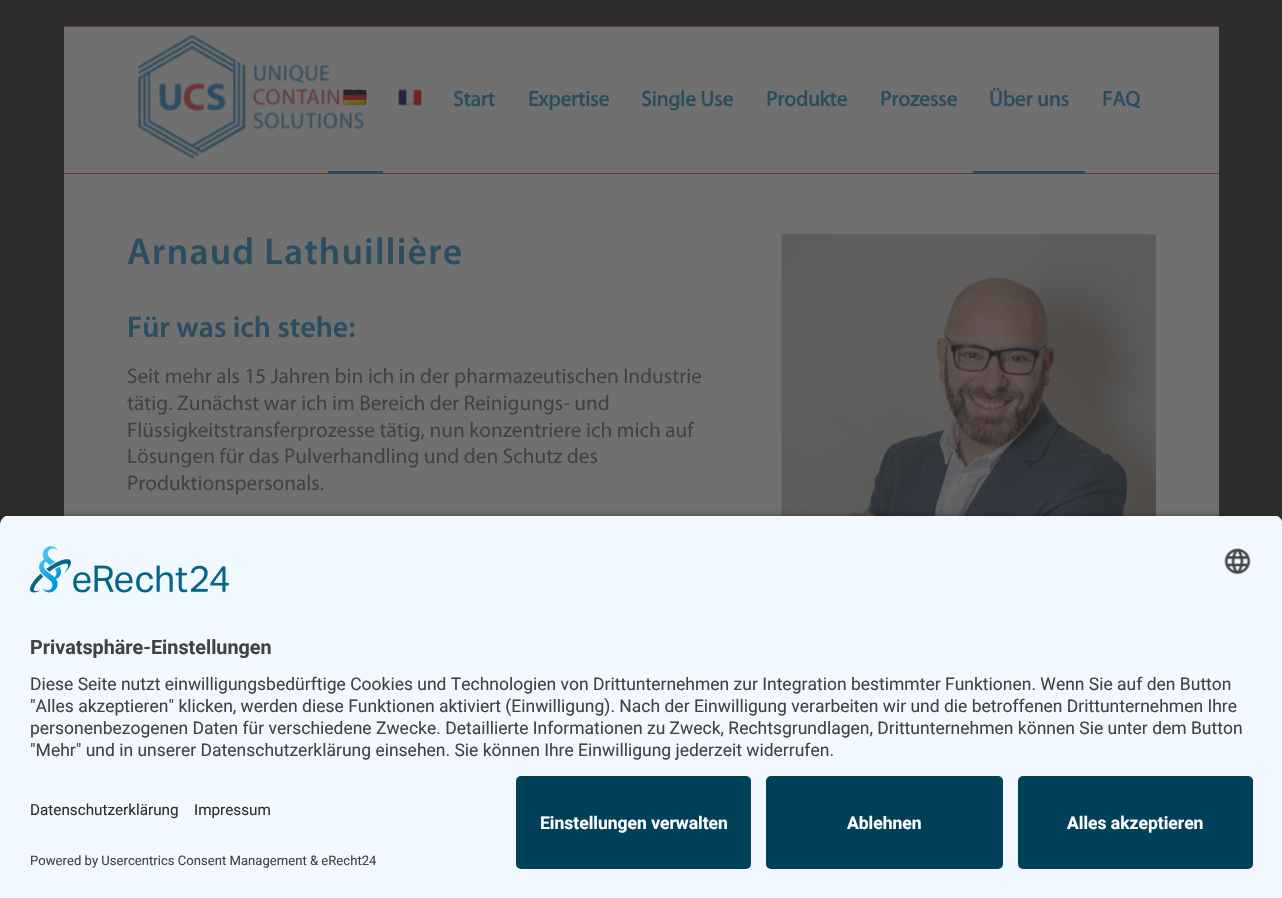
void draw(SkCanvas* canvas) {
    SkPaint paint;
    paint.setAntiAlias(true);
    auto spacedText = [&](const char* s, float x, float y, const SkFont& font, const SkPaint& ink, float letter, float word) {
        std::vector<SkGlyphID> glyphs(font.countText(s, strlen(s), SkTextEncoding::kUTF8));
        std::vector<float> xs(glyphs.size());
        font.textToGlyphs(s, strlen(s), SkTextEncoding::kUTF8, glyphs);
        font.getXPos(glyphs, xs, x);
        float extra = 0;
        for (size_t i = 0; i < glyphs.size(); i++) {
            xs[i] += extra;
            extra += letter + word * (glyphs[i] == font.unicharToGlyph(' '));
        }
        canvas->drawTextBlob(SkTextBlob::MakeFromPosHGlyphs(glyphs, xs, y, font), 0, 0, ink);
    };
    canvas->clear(0xFF2E2E2E);
    paint.setColor(0xFF693538);
    canvas->drawRect(SkRect::MakeXYWH(64, 26, 1155, 1), paint);
    paint.setColor(0xFF707070);
    canvas->drawRect(SkRect::MakeXYWH(64, 27, 1155, 489), paint);
    paint.setColor(0xFF693538);
    canvas->drawRect(SkRect::MakeXYWH(64, 173, 1155, 1), paint);
    canvas->drawImageRect(SkImages::DeferredFromEncodedData(SkData::MakeFromFileName("img1.png")), SkRect::MakeXYWH(138, 34, 230, 125), SkSamplingOptions());
    canvas->drawImageRect(SkImages::DeferredFromEncodedData(SkData::MakeFromFileName("img2.png")), SkRect::MakeXYWH(343, 90, 24, 16), SkSamplingOptions());
    paint.setColor(0xFF2B4D60);
    canvas->drawRect(SkRect::MakeXYWH(328, 171, 55, 3), paint);
    canvas->drawImageRect(SkImages::DeferredFromEncodedData(SkData::MakeFromFileName("img3.png")), SkRect::MakeXYWH(398, 89, 24, 17), SkSamplingOptions());
    SkFont font1(fontMgr->matchFamilyStyle("Myriad", SkFontStyle::Bold()), 21.25f);
    font1.setSubpixel(true);
    canvas->drawString("Start", 453, 106, font1, paint);
    canvas->drawString("Expertise", 528, 106, font1, paint);
    canvas->drawString("Single Use", 641, 106, font1, paint);
    canvas->drawString("Produkte", 766, 106, font1, paint);
    canvas->drawString("Prozesse", 880, 106, font1, paint);
    canvas->drawString("Über uns", 989, 106, font1, paint);
    canvas->drawRect(SkRect::MakeXYWH(973, 171, 112, 3), paint);
    canvas->drawString("FAQ", 1102, 106, font1, paint);
    SkFont font2(fontMgr->matchFamilyStyle("Myriad", SkFontStyle(600, SkFontStyle::kNormal_Width, SkFontStyle::kUpright_Slant)), 37.5f);
    font2.setSubpixel(true);
    spacedText("Arnaud Lathuillière", 127, 264, font2, paint, 1.25f, 0);
    SkFont font3(fontMgr->matchFamilyStyle("Myriad", SkFontStyle(600, SkFontStyle::kNormal_Width, SkFontStyle::kUpright_Slant)), 30);
    font3.setSubpixel(true);
    canvas->drawString("Für was ich stehe:", 127, 337, font3, paint);
    SkFont font4(fontMgr->matchFamilyStyle("Myriad", SkFontStyle::Normal()), 21.25f);
    font4.setSubpixel(true);
    paint.setColor(0xFF424242);
    canvas->drawString("Seit mehr als 15 Jahren bin ich in der pharmazeutischen Industrie", 127, 383, font4, paint);
    canvas->drawString("tätig. Zunächst war ich im Bereich der Reinigungs- und", 127, 410, font4, paint);
    canvas->drawString("Flüssigkeitstransferprozesse tätig, nun konzentriere ich mich auf", 127, 437, font4, paint);
    canvas->drawString("Lösungen für das Pulverhandling und den Schutz des", 127, 463, font4, paint);
    canvas->drawString("Produktionspersonals.", 127, 490, font4, paint);
    canvas->drawImageRect(SkImages::DeferredFromEncodedData(SkData::MakeFromFileName("img4.png")), SkRect::MakeXYWH(781, 234, 375, 282), SkSamplingOptions());
    paint.setColor(0xCC000000);
    paint.setMaskFilter(SkMaskFilter::MakeBlur(kNormal_SkBlurStyle, 4.5f));
    canvas->drawRoundRect(SkRect::MakeXYWH(0, 519, 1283, 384), 10, 10, paint);
    paint.setMaskFilter(nullptr);
    canvas->save();
    canvas->clipPath(SkPathBuilder().moveTo(10, 515).lineTo(1273, 515).cubicTo(1278.5f, 515, 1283, 519.5f, 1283, 525).lineTo(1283, 766).lineTo(0, 766).lineTo(0, 525).cubicTo(0, 519.5f, 4.5f, 515, 10, 515).close().detach(), true);
    paint.setColor(0xFFF1F8FF);
    canvas->drawRect(SkRect::MakeXYWH(0, 516, 1282, 250), paint);
    canvas->restore();
    canvas->drawImageRect(SkImages::DeferredFromEncodedData(SkData::MakeFromFileName("img5.png")), SkRect::MakeXYWH(30, 546, 199, 47), SkSamplingOptions());
    canvas->drawImageRect(SkImages::DeferredFromEncodedData(SkData::MakeFromFileName("img6.png")), SkRect::MakeXYWH(1224, 548, 27, 27), SkSamplingOptions());
    SkFont font5(fontMgr->matchFamilyStyle("Roboto", SkFontStyle::Bold()), 19.75f);
    font5.setSubpixel(true);
    paint.setColor(0xFF424242);
    canvas->drawString("Privatsphäre-Einstellungen", 30, 654, font5, paint);
    SkFont font6(fontMgr->matchFamilyStyle("Roboto", SkFontStyle::Normal()), 17.5f);
    font6.setSubpixel(true);
    canvas->drawString("Diese Seite nutzt einwilligungsbedürftige Cookies und Technologien von Drittunternehmen zur Integration bestimmter Funktionen. Wenn Sie auf den Button", 30, 690, font6, paint);
    canvas->drawString("\"Alles akzeptieren\" klicken, werden diese Funktionen aktiviert (Einwilligung). Nach der Einwilligung verarbeiten wir und die betroffenen Drittunternehmen Ihre", 30, 712, font6, paint);
    canvas->drawString("personenbezogenen Daten für verschiedene Zwecke. Detaillierte Informationen zu Zweck, Rechtsgrundlagen, Drittunternehmen können Sie unter dem Button", 30, 734, font6, paint);
    canvas->drawString("\"Mehr\" und in unserer Datenschutzerklärung einsehen. Sie können Ihre Einwilligung jederzeit widerrufen.", 30, 756, font6, paint);
    paint.setColor(0xFFF1F8FF);
    canvas->drawRect(SkRect::MakeXYWH(0, 766, 1282, 132), paint);
    SkFont font7(fontMgr->matchFamilyStyle("Roboto", SkFontStyle::Normal()), 15.25f);
    font7.setSubpixel(true);
    paint.setColor(0xFF303030);
    canvas->drawString("Datenschutzerklärung", 30, 815, font7, paint);
    canvas->drawString("Impressum", 194, 815, font7, paint);
    SkFont font8(fontMgr->matchFamilyStyle("Roboto", SkFontStyle::Normal()), 13.1f);
    font8.setSubpixel(true);
    paint.setColor(0xFF424242);
    canvas->drawString("Powered by Usercentrics Consent Management & eRecht24", 30, 865, font8, paint);
    paint.setColor(0xFF004059);
    canvas->drawRoundRect(SkRect::MakeXYWH(516, 776, 235, 93), 5, 5, paint);
    SkFont font9(fontMgr->matchFamilyStyle("Roboto", SkFontStyle::Bold()), 17.5f);
    font9.setSubpixel(true);
    paint.setColor(0xFFFFFFFF);
    canvas->drawString("Einstellungen verwalten", 540, 829, font9, paint);
    paint.setColor(0xFF004059);
    canvas->drawRoundRect(SkRect::MakeXYWH(766, 776, 237, 93), 5, 5, paint);
    paint.setColor(0xFFFFFFFF);
    canvas->drawString("Ablehnen", 847, 829, font9, paint);
    paint.setColor(0xFF004059);
    canvas->drawRoundRect(SkRect::MakeXYWH(1018, 776, 235, 93), 5, 5, paint);
    paint.setColor(0xFFFFFFFF);
    canvas->drawString("Alles akzeptieren", 1067, 829, font9, paint);
}
